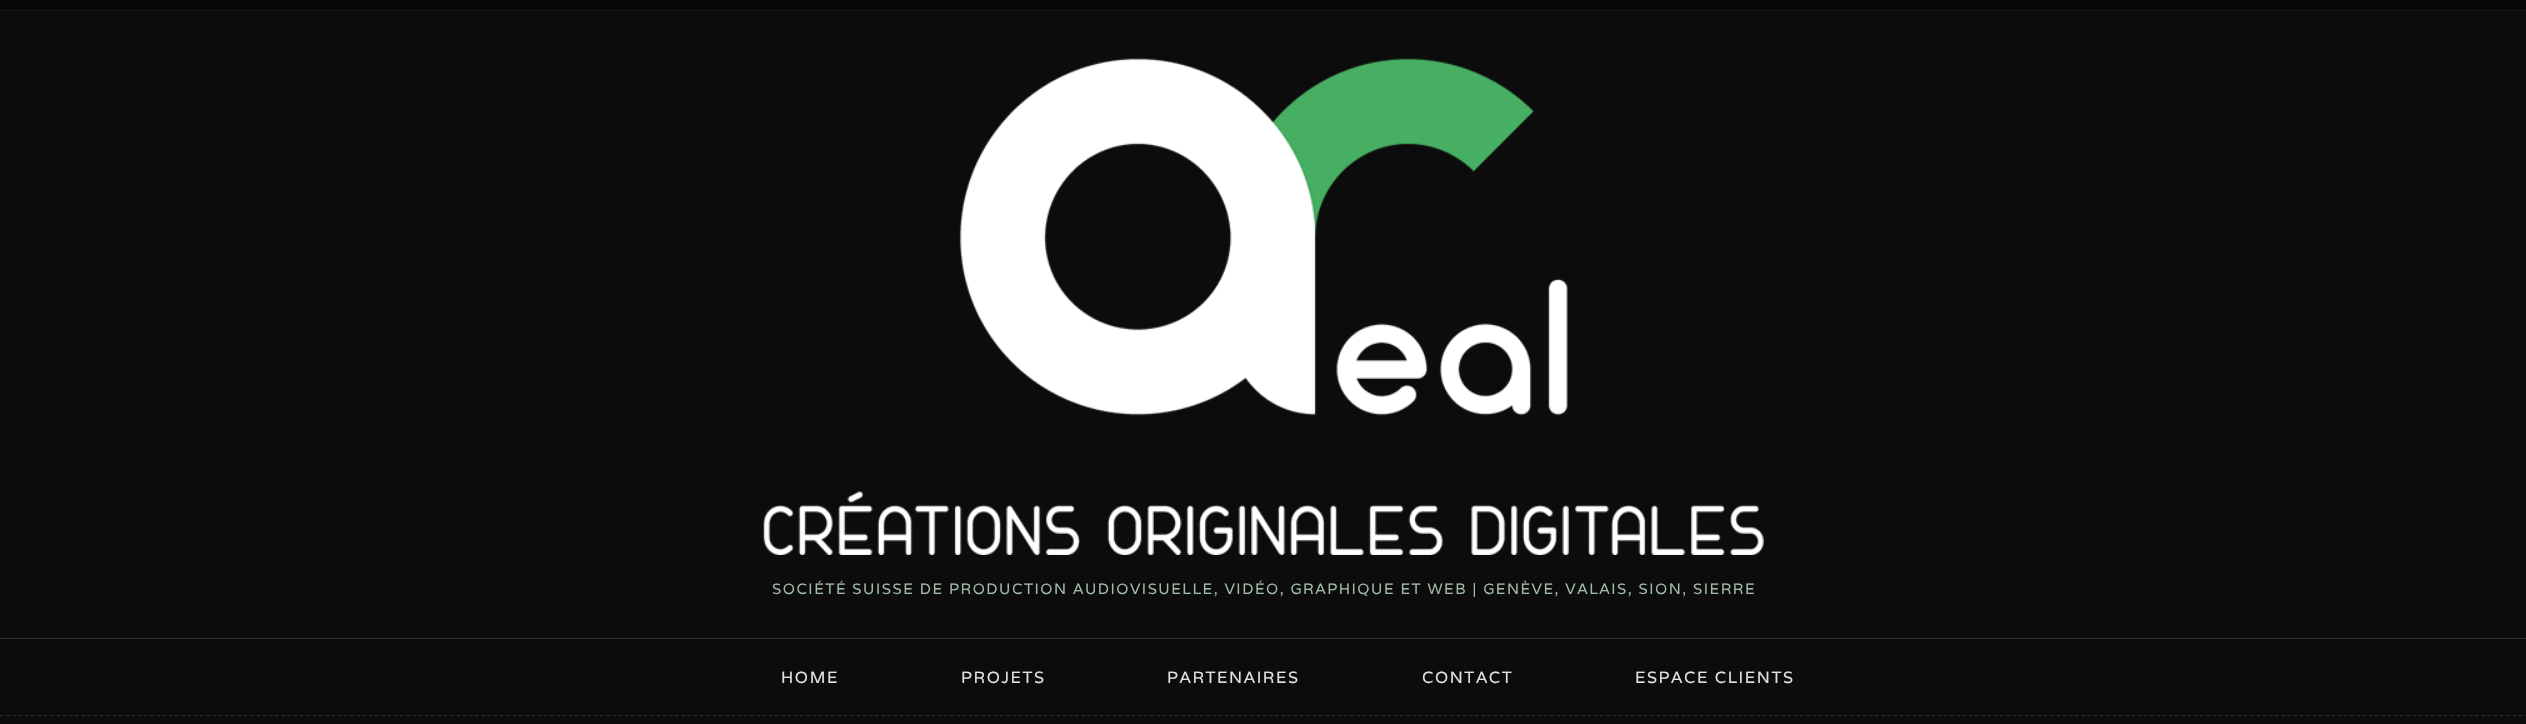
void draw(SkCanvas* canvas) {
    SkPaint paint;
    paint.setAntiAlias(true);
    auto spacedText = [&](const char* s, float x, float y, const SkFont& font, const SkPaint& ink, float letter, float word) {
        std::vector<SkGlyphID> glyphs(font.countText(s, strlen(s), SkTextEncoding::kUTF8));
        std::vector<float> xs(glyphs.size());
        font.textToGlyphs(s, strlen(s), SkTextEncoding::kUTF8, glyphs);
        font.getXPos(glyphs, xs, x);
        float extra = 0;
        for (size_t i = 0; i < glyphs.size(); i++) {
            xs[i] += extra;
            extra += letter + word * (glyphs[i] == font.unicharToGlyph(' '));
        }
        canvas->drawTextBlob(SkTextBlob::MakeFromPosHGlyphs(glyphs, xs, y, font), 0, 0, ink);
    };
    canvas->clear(0xFF070707);
    paint.setColor(0xFF0C0C0C);
    canvas->drawRect(SkRect::MakeXYWH(0, 11, 2526, 713), paint);
    paint.setColor(0xFF181818);
    canvas->drawRect(SkRect::MakeXYWH(0, 10, 2526, 1), paint);
    canvas->drawImageRect(SkImages::DeferredFromEncodedData(SkData::MakeFromFileName("img1.png")), SkRect::MakeXYWH(763, 58, 1001, 497), SkSamplingOptions());
    SkFont font1(fontMgr->matchFamilyStyle("Varela", SkFontStyle::Normal()), 15);
    font1.setSubpixel(true);
    paint.setColor(0xFFA0BBA8);
    spacedText("SOCIÉTÉ SUISSE DE PRODUCTION AUDIOVISUELLE, VIDÉO, GRAPHIQUE ET WEB | GENÈVE, VALAIS, SION, SIERRE", 772, 594, font1, paint, 1.5f, 0);
    paint.setColor(0xFF303030);
    canvas->drawRect(SkRect::MakeXYWH(0, 638, 2526, 1), paint);
    paint.setStyle(SkPaint::kStroke_Style);
    paint.setStrokeWidth(1.2f);
    paint.setPathEffect(SkDashPathEffect::Make({{3.75f, 2.5f}}, 0));
    canvas->drawPath(SkPathBuilder().moveTo(0, 715.5f).lineTo(2526, 715.5f).detach(), paint);
    paint.setPathEffect(nullptr);
    SkFont font2(fontMgr->matchFamilyStyle("Varela", SkFontStyle::Normal()), 16.25f);
    font2.setSubpixel(true);
    paint.setStyle(SkPaint::kFill_Style);
    paint.setColor(0xFFE2E2E2);
    spacedText("HOME", 781, 683, font2, paint, 1.6f, 0);
    spacedText("PROJETS", 961, 683, font2, paint, 1.6f, 0);
    spacedText("PARTENAIRES", 1167, 683, font2, paint, 1.6f, 0);
    spacedText("CONTACT", 1422, 683, font2, paint, 1.6f, 0);
    spacedText("ESPACE CLIENTS", 1635, 683, font2, paint, 1.6f, 0);
}
